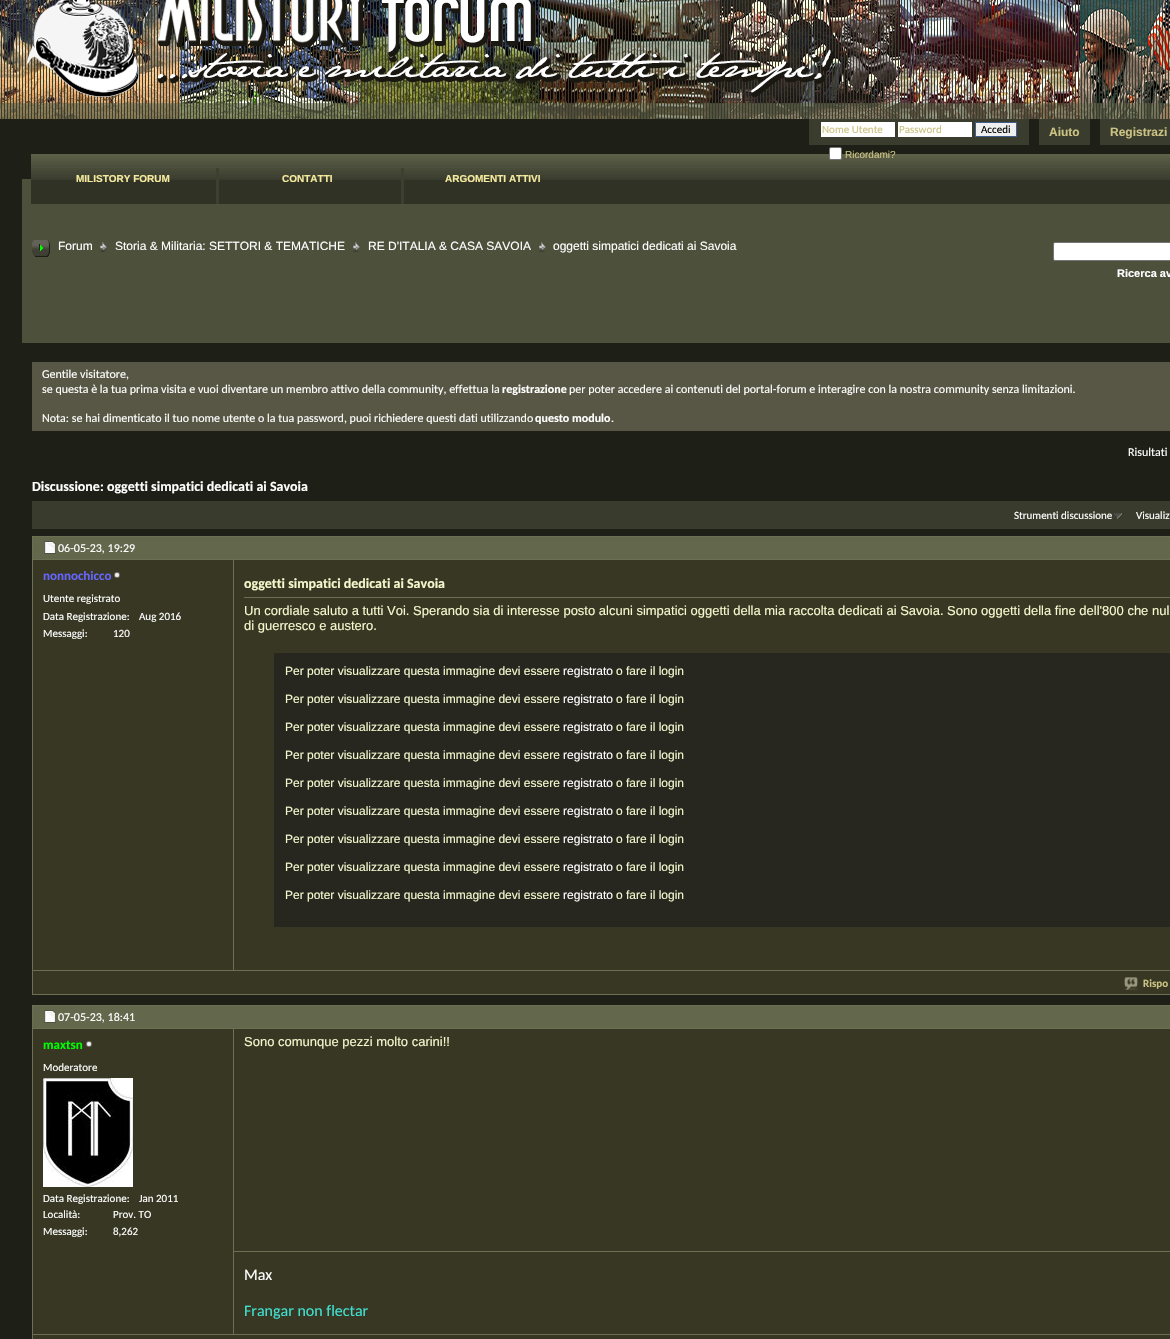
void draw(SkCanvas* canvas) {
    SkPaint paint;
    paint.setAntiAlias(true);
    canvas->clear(0xFF1E1F16);
    canvas->drawImageRect(SkImages::DeferredFromEncodedData(SkData::MakeFromFileName("img1.png")), SkRect::MakeXYWH(0, 0, 1170, 119), SkSamplingOptions());
    paint.setColor(0xFF3A3C2E);
    canvas->drawRect(SkRect::MakeXYWH(809, 119, 220, 26), paint);
    paint.setColor(0xFFFFFFFF);
    canvas->drawRect(SkRect::MakeXYWH(821, 122, 74, 15), paint);
    SkFont font1(fontMgr->matchFamilyStyle("Carlito", SkFontStyle::Normal()), 11);
    font1.setSubpixel(true);
    paint.setColor(0xFFCBC283);
    canvas->drawString("Nome Utente", 822, 133, font1, paint);
    paint.setColor(0xFFFFFFFF);
    canvas->drawRect(SkRect::MakeXYWH(898, 122, 74, 15), paint);
    paint.setColor(0xFFCBC283);
    canvas->drawString("Password", 899, 133, font1, paint);
    paint.setColor(0xFFEFEFEF);
    canvas->drawRect(SkRect::MakeXYWH(975.5f, 122.5f, 41, 14), paint);
    paint.setStyle(SkPaint::kStroke_Style);
    paint.setStrokeWidth(1);
    paint.setColor(0xFF415D8D);
    canvas->drawRect(SkRect::MakeXYWH(975.5f, 122.5f, 41, 14), paint);
    paint.setStyle(SkPaint::kFill_Style);
    paint.setColor(0xFF000000);
    canvas->drawString("Accedi", 981, 133, font1, paint);
    paint.setColor(0xFF4D503B);
    canvas->drawRect(SkRect::MakeXYWH(22, 179, 1148, 164), paint);
    canvas->drawImageRect(SkImages::DeferredFromEncodedData(SkData::MakeFromFileName("img2.png")), SkRect::MakeXYWH(31, 154, 1139, 26), SkSamplingOptions());
    paint.setColor(0xFFFFFFFF);
    canvas->drawRoundRect(SkRect::MakeXYWH(829.5f, 147.5f, 12, 12), 1.5f, 1.5f, paint);
    paint.setStyle(SkPaint::kStroke_Style);
    paint.setColor(0xFF767676);
    canvas->drawRoundRect(SkRect::MakeXYWH(829.5f, 147.5f, 12, 12), 1.5f, 1.5f, paint);
    SkFont font2(fontMgr->matchFamilyStyle("Liberation Sans", SkFontStyle::Normal()), 10);
    font2.setSubpixel(true);
    paint.setStyle(SkPaint::kFill_Style);
    paint.setColor(0xFFCBC283);
    canvas->drawString("Ricordami?", 845, 158, font2, paint);
    paint.setColor(0xFF3A3C2E);
    canvas->drawRect(SkRect::MakeXYWH(1039, 119, 51, 26), paint);
    SkFont font3(fontMgr->matchFamilyStyle("Liberation Sans", SkFontStyle::Bold()), 12);
    font3.setSubpixel(true);
    paint.setColor(0xFFCBC283);
    canvas->drawString("Aiuto", 1049, 136, font3, paint);
    paint.setColor(0xFF3A3C2E);
    canvas->drawRect(SkRect::MakeXYWH(1100, 119, 70, 26), paint);
    paint.setColor(0xFFCBC283);
    canvas->drawString("Registrazi", 1110, 136, font3, paint);
    paint.setColor(0xFF303226);
    canvas->drawRect(SkRect::MakeXYWH(31, 180, 1139, 24), paint);
    canvas->drawImageRect(SkImages::DeferredFromEncodedData(SkData::MakeFromFileName("img3.png")), SkRect::MakeXYWH(48, 154, 150, 26), SkSamplingOptions());
    SkFont font4(fontMgr->matchFamilyStyle("Liberation Sans", SkFontStyle::Bold()), 10);
    font4.setSubpixel(true);
    paint.setColor(0xFFF5EA9E);
    canvas->drawString("MILISTORY FORUM", 76, 182, font4, paint);
    paint.setColor(0xFF3D3F30);
    canvas->drawRect(SkRect::MakeXYWH(216, 168, 3, 36), paint);
    canvas->drawImageRect(SkImages::DeferredFromEncodedData(SkData::MakeFromFileName("img3.png")), SkRect::MakeXYWH(233, 154, 150, 26), SkSamplingOptions());
    paint.setColor(0xFFF5EA9E);
    canvas->drawString("CONTATTI", 282, 182, font4, paint);
    paint.setColor(0xFF3D3F30);
    canvas->drawRect(SkRect::MakeXYWH(401, 168, 3, 36), paint);
    canvas->drawImageRect(SkImages::DeferredFromEncodedData(SkData::MakeFromFileName("img3.png")), SkRect::MakeXYWH(418, 154, 150, 26), SkSamplingOptions());
    paint.setColor(0xFFF5EA9E);
    canvas->drawString("ARGOMENTI ATTIVI", 445, 182, font4, paint);
    canvas->drawImageRect(SkImages::DeferredFromEncodedData(SkData::MakeFromFileName("img4.png")), SkRect::MakeXYWH(32, 240, 18, 17), SkSamplingOptions());
    canvas->drawImageRect(SkImages::DeferredFromEncodedData(SkData::MakeFromFileName("img5.png")), SkRect::MakeXYWH(100, 242, 7, 10), SkSamplingOptions());
    SkFont font5(fontMgr->matchFamilyStyle("Liberation Sans", SkFontStyle::Normal()), 12);
    font5.setSubpixel(true);
    paint.setColor(0xFFFFFFFF);
    canvas->drawString("Forum", 58, 250, font5, paint);
    canvas->drawImageRect(SkImages::DeferredFromEncodedData(SkData::MakeFromFileName("img5.png")), SkRect::MakeXYWH(353, 242, 7, 10), SkSamplingOptions());
    canvas->drawString("Storia & Militaria: SETTORI & TEMATICHE", 115, 250, font5, paint);
    canvas->drawImageRect(SkImages::DeferredFromEncodedData(SkData::MakeFromFileName("img5.png")), SkRect::MakeXYWH(539, 242, 7, 10), SkSamplingOptions());
    canvas->drawString("RE D'ITALIA & CASA SAVOIA", 368, 250, font5, paint);
    canvas->drawString("oggetti simpatici dedicati ai Savoia", 553, 250, font5, paint);
    canvas->drawRoundRect(SkRect::MakeXYWH(1053.5f, 242.5f, 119, 18), 1.5f, 1.5f, paint);
    paint.setStyle(SkPaint::kStroke_Style);
    paint.setColor(0xFF767676);
    canvas->drawRoundRect(SkRect::MakeXYWH(1053.5f, 242.5f, 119, 18), 1.5f, 1.5f, paint);
    SkFont font6(fontMgr->matchFamilyStyle("Liberation Sans", SkFontStyle::Bold()), 11);
    font6.setSubpixel(true);
    paint.setStyle(SkPaint::kFill_Style);
    paint.setColor(0xFFFFFFFF);
    canvas->drawString("Ricerca av", 1117, 277, font6, paint);
    paint.setColor(0xFF585745);
    canvas->drawRect(SkRect::MakeXYWH(32, 362, 1138, 69), paint);
    SkFont font7(fontMgr->matchFamilyStyle("Carlito", SkFontStyle::Normal()), 12);
    font7.setSubpixel(true);
    paint.setColor(0xFFFFFFFF);
    canvas->drawString("Gentile visitatore,", 42, 378, font7, paint);
    canvas->drawString("se questa è la tua prima visita e vuoi diventare un membro attivo della community, effettua la", 42, 393, font7, paint);
    SkFont font8(fontMgr->matchFamilyStyle("Carlito", SkFontStyle::Bold()), 12);
    font8.setSubpixel(true);
    canvas->drawString("registrazione", 502, 393, font8, paint);
    canvas->drawString("per poter accedere ai contenuti del portal-forum e interagire con la nostra community senza limitazioni.", 569, 393, font7, paint);
    canvas->drawString("Nota: se hai dimenticato il tuo nome utente o la tua password, puoi richiedere questi dati utilizzando", 42, 422, font7, paint);
    canvas->drawString("questo modulo", 535, 422, font8, paint);
    canvas->drawString(".", 611, 422, font7, paint);
    canvas->drawString("Risultati", 1128, 456, font7, paint);
    SkFont font9(fontMgr->matchFamilyStyle("Carlito", SkFontStyle::Bold()), 14);
    font9.setSubpixel(true);
    canvas->drawString("Discussione: oggetti simpatici dedicati ai Savoia", 32, 491, font9, paint);
    paint.setColor(0xFF393B2D);
    canvas->drawRect(SkRect::MakeXYWH(32, 501, 1138, 28), paint);
    canvas->drawImageRect(SkImages::DeferredFromEncodedData(SkData::MakeFromFileName("img6.png")), SkRect::MakeXYWH(1113, 513, 9, 6), SkSamplingOptions());
    paint.setColor(0xFFFFFFFF);
    canvas->drawString("Strumenti discussione", 1014, 519, font1, paint);
    canvas->drawString("Visualiz", 1136, 519, font1, paint);
    paint.setStyle(SkPaint::kStroke_Style);
    paint.setColor(0xFF6C7053);
    canvas->drawRect(SkRect::MakeXYWH(32.5f, 536.5f, 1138, 458), paint);
    paint.setStyle(SkPaint::kFill_Style);
    paint.setColor(0xFF63674C);
    canvas->drawRect(SkRect::MakeXYWH(32.5f, 536.5f, 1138, 23), paint);
    paint.setStyle(SkPaint::kStroke_Style);
    paint.setColor(0xFF6C7053);
    canvas->drawRect(SkRect::MakeXYWH(32.5f, 536.5f, 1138, 23), paint);
    canvas->drawImageRect(SkImages::DeferredFromEncodedData(SkData::MakeFromFileName("img7.png")), SkRect::MakeXYWH(44, 541, 12, 13), SkSamplingOptions());
    paint.setStyle(SkPaint::kFill_Style);
    paint.setColor(0xFFFFFFFF);
    canvas->drawString("06-05-23, 19:29", 58, 552, font7, paint);
    paint.setColor(0xFF373723);
    canvas->drawRect(SkRect::MakeXYWH(33, 560, 1137, 410), paint);
    SkFont font10(fontMgr->matchFamilyStyle("Carlito", SkFontStyle::Bold()), 13);
    font10.setSubpixel(true);
    paint.setColor(0xFF6666FF);
    canvas->drawString("nonnochicco", 43, 580, font10, paint);
    canvas->drawImageRect(SkImages::DeferredFromEncodedData(SkData::MakeFromFileName("img8.png")), SkRect::MakeXYWH(114, 572, 6, 6), SkSamplingOptions());
    paint.setColor(0xFFFFFFFF);
    canvas->drawString("Utente registrato", 43, 602, font1, paint);
    canvas->drawString("Data Registrazione:", 43, 620, font1, paint);
    canvas->drawString("Aug 2016", 139, 620, font1, paint);
    canvas->drawString("Messaggi:", 43, 637, font1, paint);
    canvas->drawString("120", 113, 637, font1, paint);
    paint.setColor(0xFF6C7053);
    canvas->drawRect(SkRect::MakeXYWH(233, 560, 1, 410), paint);
    canvas->drawRect(SkRect::MakeXYWH(244, 597, 926, 1), paint);
    paint.setColor(0xFFF5F8CD);
    canvas->drawString("oggetti simpatici dedicati ai Savoia", 244, 588, font9, paint);
    SkFont font11(fontMgr->matchFamilyStyle("Liberation Sans", SkFontStyle::Normal()), 13);
    font11.setSubpixel(true);
    canvas->drawString("Un cordiale saluto a tutti Voi. Sperando sia di interesse posto alcuni simpatici oggetti della mia raccolta dedicati ai Savoia. Sono oggetti della fine dell'800 che nul", 244, 615, font11, paint);
    canvas->drawString("di guerresco e austero.", 244, 630, font11, paint);
    paint.setColor(0xFF27271F);
    canvas->drawRect(SkRect::MakeXYWH(274, 653, 896, 274), paint);
    paint.setColor(0xFFF5F8CD);
    canvas->drawString("Per poter visualizzare questa immagine devi essere", 285, 675, font5, paint);
    paint.setColor(0xFFFFFFFF);
    canvas->drawString("registrato", 563, 675, font5, paint);
    paint.setColor(0xFFF5F8CD);
    canvas->drawString("o fare il login", 616, 675, font5, paint);
    canvas->drawString("Per poter visualizzare questa immagine devi essere", 285, 703, font5, paint);
    paint.setColor(0xFFFFFFFF);
    canvas->drawString("registrato", 563, 703, font5, paint);
    paint.setColor(0xFFF5F8CD);
    canvas->drawString("o fare il login", 616, 703, font5, paint);
    canvas->drawString("Per poter visualizzare questa immagine devi essere", 285, 731, font5, paint);
    paint.setColor(0xFFFFFFFF);
    canvas->drawString("registrato", 563, 731, font5, paint);
    paint.setColor(0xFFF5F8CD);
    canvas->drawString("o fare il login", 616, 731, font5, paint);
    canvas->drawString("Per poter visualizzare questa immagine devi essere", 285, 759, font5, paint);
    paint.setColor(0xFFFFFFFF);
    canvas->drawString("registrato", 563, 759, font5, paint);
    paint.setColor(0xFFF5F8CD);
    canvas->drawString("o fare il login", 616, 759, font5, paint);
    canvas->drawString("Per poter visualizzare questa immagine devi essere", 285, 787, font5, paint);
    paint.setColor(0xFFFFFFFF);
    canvas->drawString("registrato", 563, 787, font5, paint);
    paint.setColor(0xFFF5F8CD);
    canvas->drawString("o fare il login", 616, 787, font5, paint);
    canvas->drawString("Per poter visualizzare questa immagine devi essere", 285, 815, font5, paint);
    paint.setColor(0xFFFFFFFF);
    canvas->drawString("registrato", 563, 815, font5, paint);
    paint.setColor(0xFFF5F8CD);
    canvas->drawString("o fare il login", 616, 815, font5, paint);
    canvas->drawString("Per poter visualizzare questa immagine devi essere", 285, 843, font5, paint);
    paint.setColor(0xFFFFFFFF);
    canvas->drawString("registrato", 563, 843, font5, paint);
    paint.setColor(0xFFF5F8CD);
    canvas->drawString("o fare il login", 616, 843, font5, paint);
    canvas->drawString("Per poter visualizzare questa immagine devi essere", 285, 871, font5, paint);
    paint.setColor(0xFFFFFFFF);
    canvas->drawString("registrato", 563, 871, font5, paint);
    paint.setColor(0xFFF5F8CD);
    canvas->drawString("o fare il login", 616, 871, font5, paint);
    canvas->drawString("Per poter visualizzare questa immagine devi essere", 285, 899, font5, paint);
    paint.setColor(0xFFFFFFFF);
    canvas->drawString("registrato", 563, 899, font5, paint);
    paint.setColor(0xFFF5F8CD);
    canvas->drawString("o fare il login", 616, 899, font5, paint);
    paint.setColor(0xFF373723);
    canvas->drawRect(SkRect::MakeXYWH(33, 971, 1137, 23), paint);
    paint.setColor(0xFF6C7053);
    canvas->drawRect(SkRect::MakeXYWH(33, 970, 1137, 1), paint);
    canvas->drawImageRect(SkImages::DeferredFromEncodedData(SkData::MakeFromFileName("img9.png")), SkRect::MakeXYWH(1124, 977, 14, 13), SkSamplingOptions());
    SkFont font12(fontMgr->matchFamilyStyle("Carlito", SkFontStyle::Bold()), 11);
    font12.setSubpixel(true);
    paint.setColor(0xFFCBC283);
    canvas->drawString("Rispo", 1143, 987, font12, paint);
    paint.setStyle(SkPaint::kStroke_Style);
    paint.setColor(0xFF6C7053);
    canvas->drawRect(SkRect::MakeXYWH(32.5f, 1005.5f, 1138, 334), paint);
    paint.setStyle(SkPaint::kFill_Style);
    paint.setColor(0xFF63674C);
    canvas->drawRect(SkRect::MakeXYWH(32.5f, 1005.5f, 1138, 23), paint);
    paint.setStyle(SkPaint::kStroke_Style);
    paint.setColor(0xFF6C7053);
    canvas->drawRect(SkRect::MakeXYWH(32.5f, 1005.5f, 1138, 23), paint);
    canvas->drawImageRect(SkImages::DeferredFromEncodedData(SkData::MakeFromFileName("img7.png")), SkRect::MakeXYWH(44, 1010, 12, 13), SkSamplingOptions());
    paint.setStyle(SkPaint::kFill_Style);
    paint.setColor(0xFFFFFFFF);
    canvas->drawString("07-05-23, 18:41", 58, 1021, font7, paint);
    paint.setColor(0xFF373723);
    canvas->drawRect(SkRect::MakeXYWH(33, 1029, 1137, 305), paint);
    paint.setColor(0xFF00FF00);
    canvas->drawString("maxtsn", 43, 1049, font10, paint);
    canvas->drawImageRect(SkImages::DeferredFromEncodedData(SkData::MakeFromFileName("img8.png")), SkRect::MakeXYWH(86, 1041, 6, 6), SkSamplingOptions());
    paint.setColor(0xFFFFFFFF);
    canvas->drawString("Moderatore", 43, 1071, font1, paint);
    canvas->drawImageRect(SkImages::DeferredFromEncodedData(SkData::MakeFromFileName("img10.png")), SkRect::MakeXYWH(43, 1078, 90, 109), SkSamplingOptions());
    canvas->drawString("Data Registrazione:", 43, 1202, font1, paint);
    canvas->drawString("Jan 2011", 139, 1202, font1, paint);
    canvas->drawString("Località:", 43, 1218, font1, paint);
    canvas->drawString("Prov. TO", 113, 1218, font1, paint);
    canvas->drawString("Messaggi:", 43, 1235, font1, paint);
    canvas->drawString("8,262", 113, 1235, font1, paint);
    paint.setColor(0xFF6C7053);
    canvas->drawRect(SkRect::MakeXYWH(233, 1029, 1, 305), paint);
    paint.setColor(0xFFF5F8CD);
    canvas->drawString("Sono comunque pezzi molto carini!!", 244, 1046, font11, paint);
    paint.setColor(0xFF6C7053);
    canvas->drawRect(SkRect::MakeXYWH(234, 1251, 936, 1), paint);
    SkFont font13(fontMgr->matchFamilyStyle("Carlito", SkFontStyle::Normal()), 16);
    font13.setSubpixel(true);
    paint.setColor(0xFFFFFFFF);
    canvas->drawString("Max", 244, 1280, font13, paint);
    paint.setColor(0xFF40E0D0);
    canvas->drawString("Frangar non flectar", 244, 1316, font13, paint);
    paint.setColor(0xFF373723);
    canvas->drawRect(SkRect::MakeXYWH(33, 1335, 1137, 4), paint);
    paint.setColor(0xFF6C7053);
    canvas->drawRect(SkRect::MakeXYWH(33, 1334, 1137, 1), paint);
}
